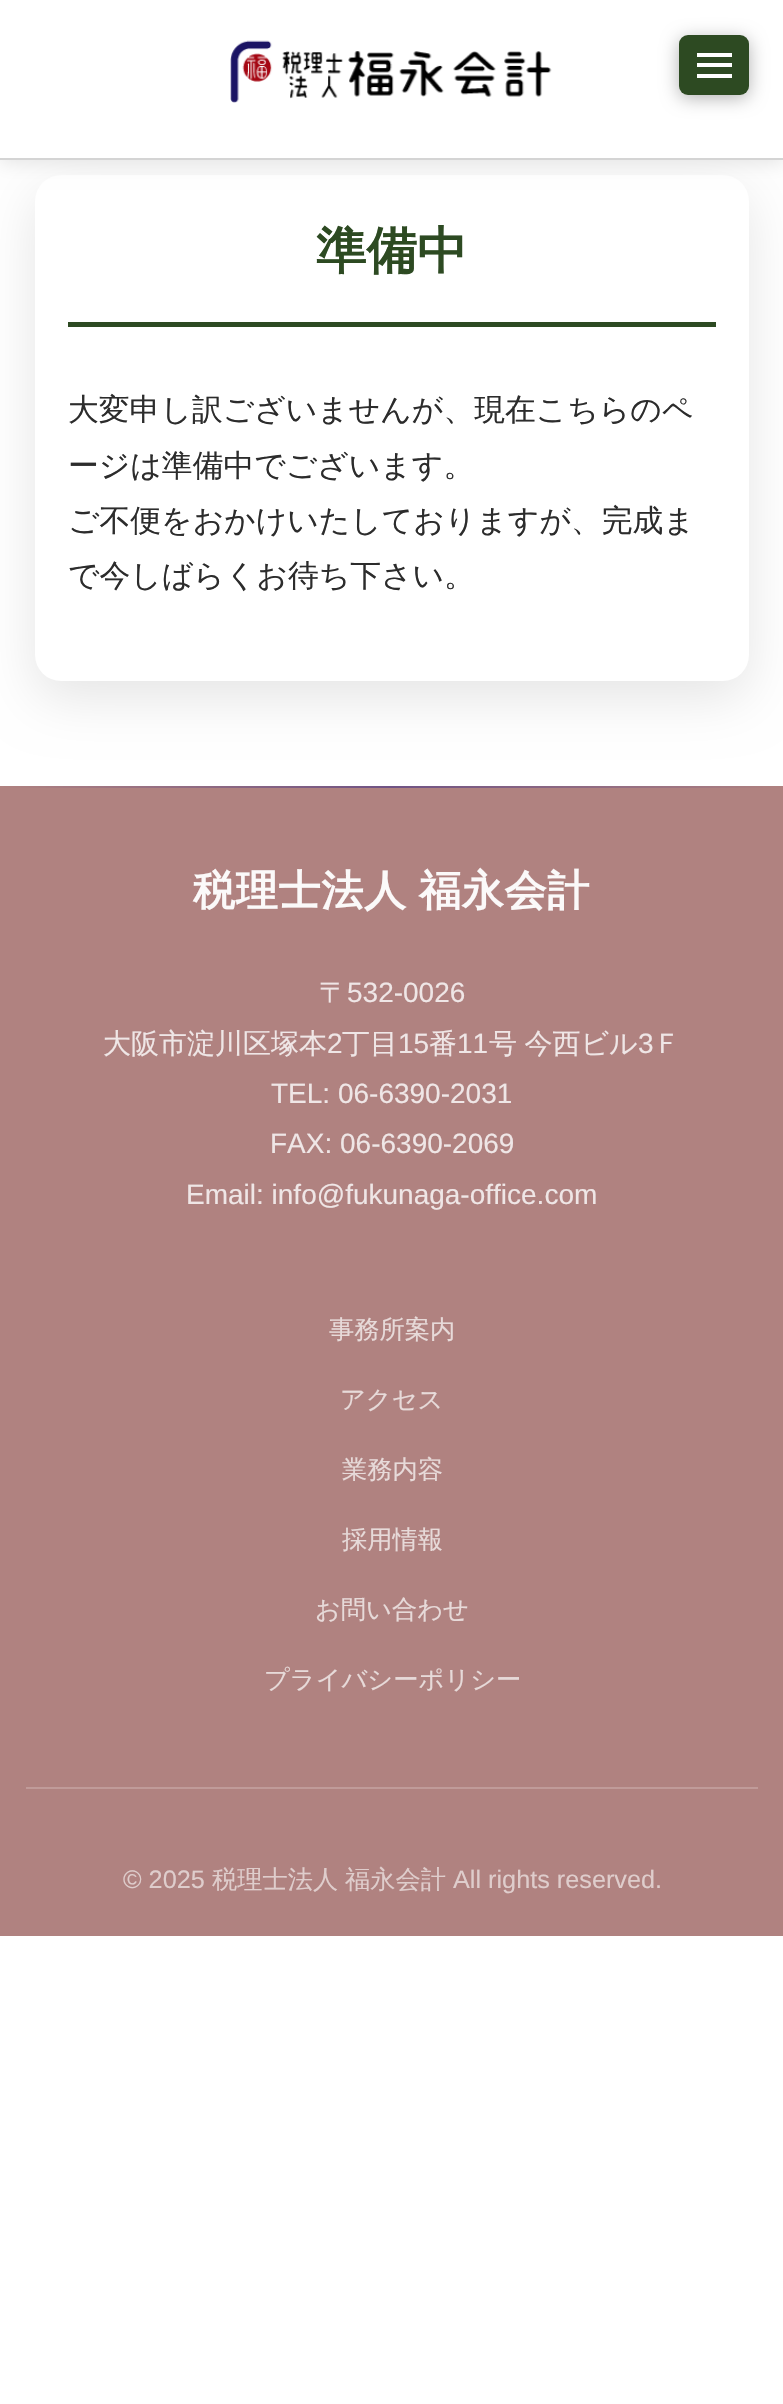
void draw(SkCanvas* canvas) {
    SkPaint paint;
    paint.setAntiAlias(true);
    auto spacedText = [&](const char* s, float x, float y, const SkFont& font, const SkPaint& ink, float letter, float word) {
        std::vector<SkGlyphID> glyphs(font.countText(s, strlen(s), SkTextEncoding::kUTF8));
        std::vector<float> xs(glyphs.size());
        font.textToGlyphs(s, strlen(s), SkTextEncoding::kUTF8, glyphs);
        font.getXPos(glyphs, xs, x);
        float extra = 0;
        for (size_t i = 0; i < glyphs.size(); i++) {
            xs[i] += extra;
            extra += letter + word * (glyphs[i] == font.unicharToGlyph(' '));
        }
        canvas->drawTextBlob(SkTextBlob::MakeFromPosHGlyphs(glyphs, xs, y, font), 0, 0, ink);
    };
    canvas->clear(0xFFFFFFFF);
    paint.setColor(0x1A000000);
    paint.setMaskFilter(SkMaskFilter::MakeBlur(kNormal_SkBlurStyle, 26));
    canvas->drawRoundRect(SkRect::MakeXYWH(35, 193, 714, 505), 26, 26, paint);
    paint.setMaskFilter(nullptr);
    paint.setColor(0xFFFFFFFF);
    canvas->drawRoundRect(SkRect::MakeXYWH(35, 175, 714, 506), 26, 26, paint);
    paint.setColor(0x1A000000);
    paint.setMaskFilter(SkMaskFilter::MakeBlur(kNormal_SkBlurStyle, 9));
    canvas->drawRect(SkRect::MakeXYWH(0, 4, 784, 159), paint);
    paint.setMaskFilter(nullptr);
    paint.setColor(0xFFFFFFFF);
    canvas->drawRect(SkRect::MakeXYWH(0, 0, 783, 158), paint);
    paint.setColor(0x4D000000);
    paint.setMaskFilter(SkMaskFilter::MakeBlur(kNormal_SkBlurStyle, 9));
    canvas->drawRoundRect(SkRect::MakeXYWH(679, 39, 70, 59), 9, 9, paint);
    paint.setMaskFilter(nullptr);
    paint.setColor(0xFF2D4A22);
    canvas->drawRoundRect(SkRect::MakeXYWH(679, 35, 70, 60), 9, 9, paint);
    paint.setColor(0xFFFFFFFF);
    canvas->drawRect(SkRect::MakeXYWH(697, 53, 35, 4), paint);
    canvas->drawRect(SkRect::MakeXYWH(697, 63, 35, 4), paint);
    canvas->drawRect(SkRect::MakeXYWH(697, 74, 35, 4), paint);
    paint.setColor(0xFFD4D4D4);
    canvas->drawRect(SkRect::MakeXYWH(0, 158, 783, 2), paint);
    canvas->drawImageRect(SkImages::DeferredFromEncodedData(SkData::MakeFromFileName("img1.png")), SkRect::MakeXYWH(230, 40, 322, 63), SkSamplingOptions());
    paint.setColor(0xFF2D4A22);
    canvas->drawRect(SkRect::MakeXYWH(68, 322, 648, 5), paint);
    SkFont font1(fontMgr->matchFamilyStyle("WenQuanYi Zen Hei", SkFontStyle::Bold()), 50.5f);
    font1.setSubpixel(true);
    canvas->drawString("準備中", 316, 268, font1, paint);
    SkFont font2(fontMgr->matchFamilyStyle("WenQuanYi Zen Hei", SkFontStyle(500, SkFontStyle::kNormal_Width, SkFontStyle::kUpright_Slant)), 30.8f);
    font2.setSubpixel(true);
    paint.setColor(0xFF2C2C2C);
    canvas->drawString("大変申し訳ございませんが、現在こちらのペ", 68, 420, font2, paint);
    canvas->drawString("ージは準備中でございます。", 68, 476, font2, paint);
    canvas->drawString("ご不便をおかけいたしておりますが、完成ま", 68, 531, font2, paint);
    canvas->drawString("で今しばらくお待ち下さい。", 68, 586, font2, paint);
    paint.setColor(0xFFB08280);
    canvas->drawRect(SkRect::MakeXYWH(0, 788, 783, 1148), paint);
    {
        const SkColor colors[] = {0xFFB08280, 0xFF6F5384, 0xFFB08280};
        const float stops[] = {0, 0.5f, 1};
        const SkPoint ends[] = {{0, 787}, {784, 787}};
        paint.setShader(SkGradientShader::MakeLinear(ends, colors, stops, 3, SkTileMode::kClamp));
        paint.setAlpha(255);
    }
    canvas->drawRect(SkRect::MakeXYWH(0, 786, 783, 2), paint);
    SkFont font3(fontMgr->matchFamilyStyle("WenQuanYi Zen Hei", SkFontStyle::Bold()), 42);
    font3.setSubpixel(true);
    paint.setShader(nullptr);
    paint.setColor(0xFFFBF9F9);
    spacedText("税理士法人 福永会計", 193, 905, font3, paint, 0.75f, -1);
    SkFont font4(fontMgr->matchFamilyStyle("WenQuanYi Zen Hei", SkFontStyle(500, SkFontStyle::kNormal_Width, SkFontStyle::kUpright_Slant)), 28);
    font4.setSubpixel(true);
    paint.setColor(0xFFEFE6E6);
    canvas->drawString("〒", 319, 1002, font4, paint);
    SkFont font5(fontMgr->matchFamilyStyle("Liberation Sans", SkFontStyle::Normal()), 28);
    font5.setSubpixel(true);
    canvas->drawString("532-0026", 347, 1002, font5, paint);
    canvas->drawString("大阪市淀川区塚本", 103, 1053, font4, paint);
    canvas->drawString("2", 327, 1053, font5, paint);
    canvas->drawString("丁目", 342, 1053, font4, paint);
    canvas->drawString("15", 398, 1053, font5, paint);
    canvas->drawString("番", 429, 1053, font4, paint);
    canvas->drawString("11", 457, 1053, font5, paint);
    spacedText("号 今西ビル", 489, 1053, font4, paint, 0, -1);
    canvas->drawString("3", 638, 1053, font5, paint);
    canvas->drawString("Ｆ", 653, 1053, font4, paint);
    canvas->drawString("TEL: 06-6390-2031", 271, 1103, font5, paint);
    canvas->drawString("FAX: 06-6390-2069", 270, 1153, font5, paint);
    canvas->drawString("Email: info@fukunaga-office.com", 186, 1204, font5, paint);
    SkFont font6(fontMgr->matchFamilyStyle("WenQuanYi Zen Hei", SkFontStyle(500, SkFontStyle::kNormal_Width, SkFontStyle::kUpright_Slant)), 25.25f);
    font6.setSubpixel(true);
    paint.setColor(0xFFE7DAD9);
    canvas->drawString("事務所案内", 329, 1338, font6, paint);
    canvas->drawString("アクセス", 340, 1408, font6, paint);
    canvas->drawString("業務内容", 342, 1478, font6, paint);
    canvas->drawString("採用情報", 342, 1548, font6, paint);
    canvas->drawString("お問い合わせ", 315, 1618, font6, paint);
    canvas->drawString("プライバシーポリシー", 264, 1688, font6, paint);
    paint.setColor(0xFFC09B99);
    canvas->drawRect(SkRect::MakeXYWH(26, 1787, 732, 2), paint);
    SkFont font7(fontMgr->matchFamilyStyle("Liberation Sans", SkFontStyle::Normal()), 25.25f);
    font7.setSubpixel(true);
    paint.setColor(0xFFDFCDCC);
    canvas->drawString("© 2025", 123, 1888, font7, paint);
    canvas->drawString("税理士法人", 212, 1888, font6, paint);
    canvas->drawString("福永会計", 345, 1888, font6, paint);
    canvas->drawString("All rights reserved.", 453, 1888, font7, paint);
}
